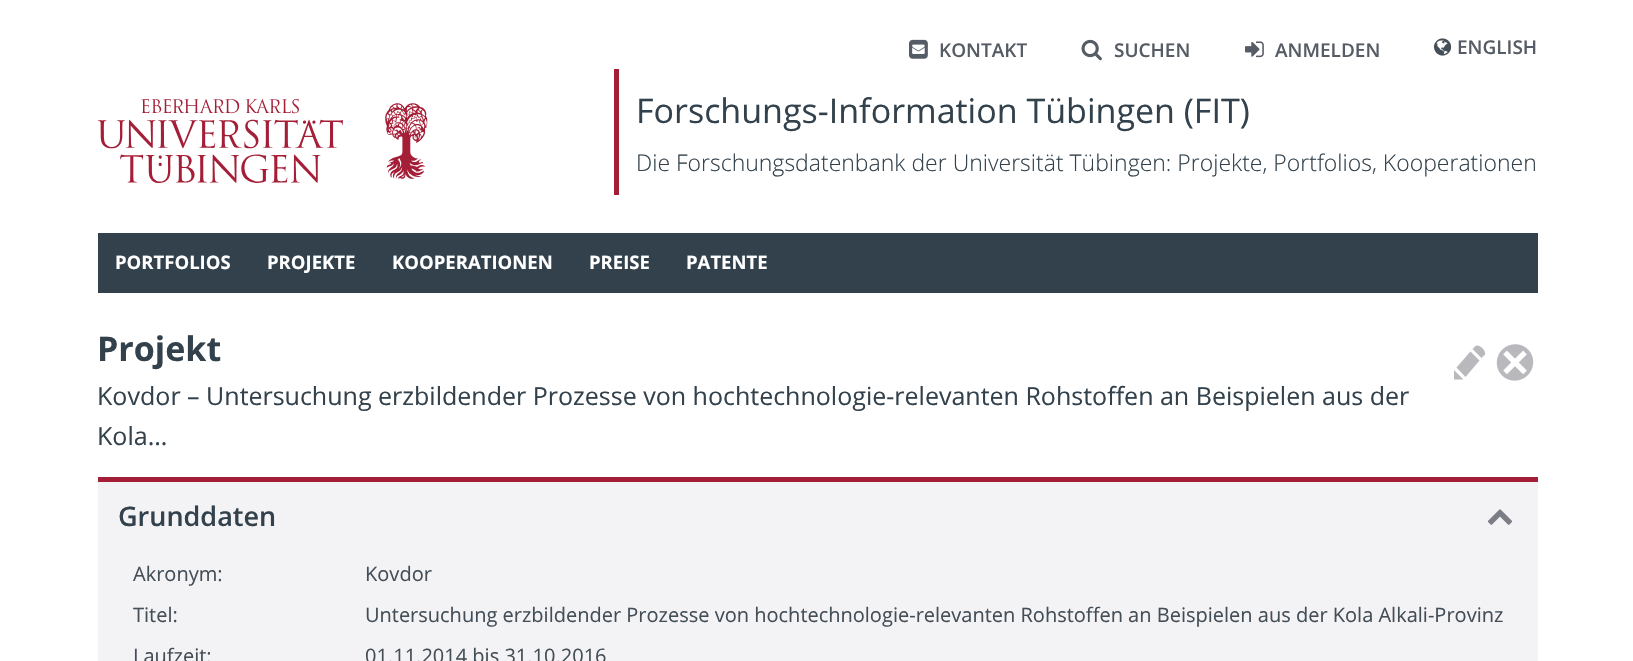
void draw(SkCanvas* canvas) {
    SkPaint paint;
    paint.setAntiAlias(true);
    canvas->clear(0xFFFFFFFF);
    canvas->drawImageRect(SkImages::DeferredFromEncodedData(SkData::MakeFromFileName("img1.png")), SkRect::MakeXYWH(909, 39, 19, 20), SkSamplingOptions());
    SkFont font1(fontMgr->matchFamilyStyle("Open Sans", SkFontStyle(600, SkFontStyle::kNormal_Width, SkFontStyle::kUpright_Slant)), 19);
    font1.setSubpixel(true);
    paint.setColor(0xFF565C65);
    canvas->drawString("KONTAKT", 939, 57, font1, paint);
    canvas->drawImageRect(SkImages::DeferredFromEncodedData(SkData::MakeFromFileName("img2.png")), SkRect::MakeXYWH(1081, 39, 21, 22), SkSamplingOptions());
    canvas->drawString("SUCHEN", 1114, 57, font1, paint);
    canvas->drawImageRect(SkImages::DeferredFromEncodedData(SkData::MakeFromFileName("img3.png")), SkRect::MakeXYWH(1245, 41, 19, 17), SkSamplingOptions());
    canvas->drawString("ANMELDEN", 1275, 57, font1, paint);
    canvas->drawImageRect(SkImages::DeferredFromEncodedData(SkData::MakeFromFileName("img4.png")), SkRect::MakeXYWH(1434, 38, 18, 18), SkSamplingOptions());
    canvas->drawString("ENGLISH", 1457, 54, font1, paint);
    canvas->drawImageRect(SkImages::DeferredFromEncodedData(SkData::MakeFromFileName("img5.png")), SkRect::MakeXYWH(98, 99, 330, 84), SkSamplingOptions());
    paint.setColor(0xFFA51E37);
    canvas->drawRect(SkRect::MakeXYWH(614, 69, 5, 126), paint);
    SkFont font2(fontMgr->matchFamilyStyle("Open Sans", SkFontStyle::Normal()), 34);
    font2.setSubpixel(true);
    paint.setColor(0xFF32414B);
    canvas->drawString("Forschungs-Information Tübingen (FIT)", 636, 123, font2, paint);
    SkFont font3(fontMgr->matchFamilyStyle("Open Sans", SkFontStyle(300, SkFontStyle::kNormal_Width, SkFontStyle::kUpright_Slant)), 23);
    font3.setSubpixel(true);
    canvas->drawString("Die Forschungsdatenbank der Universität Tübingen: Projekte, Portfolios, Kooperationen", 636, 171, font3, paint);
    canvas->drawRect(SkRect::MakeXYWH(98, 233, 1440, 60), paint);
    SkFont font4(fontMgr->matchFamilyStyle("Open Sans", SkFontStyle::Bold()), 18.5f);
    font4.setSubpixel(true);
    paint.setColor(0xFFFFFFFF);
    canvas->drawString("PORTFOLIOS", 115, 269, font4, paint);
    canvas->drawString("PROJEKTE", 267, 269, font4, paint);
    canvas->drawString("KOOPERATIONEN", 392, 269, font4, paint);
    canvas->drawString("PREISE", 589, 269, font4, paint);
    canvas->drawString("PATENTE", 686, 269, font4, paint);
    SkFont font5(fontMgr->matchFamilyStyle("Open Sans", SkFontStyle::Bold()), 34);
    font5.setSubpixel(true);
    paint.setColor(0xFF32414B);
    canvas->drawString("Projekt", 97, 361, font5, paint);
    SkFont font6(fontMgr->matchFamilyStyle("Open Sans", SkFontStyle::Normal()), 25);
    font6.setSubpixel(true);
    canvas->drawString("Kovdor – Untersuchung erzbildender Prozesse von hochtechnologie-relevanten Rohstoffen an Beispielen aus der", 97, 405, font6, paint);
    canvas->drawString("Kola…", 97, 445, font6, paint);
    paint.setColor(0xFFB9B8BC);
    canvas->drawPath(SkPathBuilder().moveTo(1454, 370).lineTo(1463.5f, 379.5f).lineTo(1454, 379.5f).close().moveTo(1470.5f, 351.5f).lineTo(1479.5f, 360.5f).lineTo(1465.5f, 377).lineTo(1456.5f, 367.5f).close().moveTo(1475, 346.5f).cubicTo(1478.5f, 343, 1486.5f, 350.5f, 1485, 354.5f).lineTo(1481.5f, 358).lineTo(1472.5f, 349).close().detach(), paint);
    canvas->drawImageRect(SkImages::DeferredFromEncodedData(SkData::MakeFromFileName("img6.png")), SkRect::MakeXYWH(1496, 344, 38, 37), SkSamplingOptions());
    paint.setColor(0xFFF3F2F5);
    canvas->drawRect(SkRect::MakeXYWH(98, 482, 1440, 179), paint);
    paint.setColor(0xFFA51E37);
    canvas->drawRect(SkRect::MakeXYWH(98, 477, 1440, 5), paint);
    SkFont font7(fontMgr->matchFamilyStyle("Open Sans", SkFontStyle(600, SkFontStyle::kNormal_Width, SkFontStyle::kUpright_Slant)), 27);
    font7.setSubpixel(true);
    paint.setColor(0xFF32414B);
    canvas->drawString("Grunddaten", 118, 526, font7, paint);
    canvas->drawImageRect(SkImages::DeferredFromEncodedData(SkData::MakeFromFileName("img7.png")), SkRect::MakeXYWH(1487, 509, 26, 16), SkSamplingOptions());
    SkFont font8(fontMgr->matchFamilyStyle("Open Sans", SkFontStyle::Normal()), 20);
    font8.setSubpixel(true);
    paint.setColor(0xFF444E57);
    canvas->drawString("Akronym:", 133, 581, font8, paint);
    canvas->drawString("Kovdor", 365, 581, font8, paint);
    canvas->drawString("Titel:", 133, 622, font8, paint);
    canvas->drawString("Untersuchung erzbildender Prozesse von hochtechnologie-relevanten Rohstoffen an Beispielen aus der Kola Alkali-Provinz", 365, 622, font8, paint);
    canvas->drawString("Laufzeit:", 133, 663, font8, paint);
    canvas->drawString("01.11.2014 bis 31.10.2016", 365, 663, font8, paint);
}
